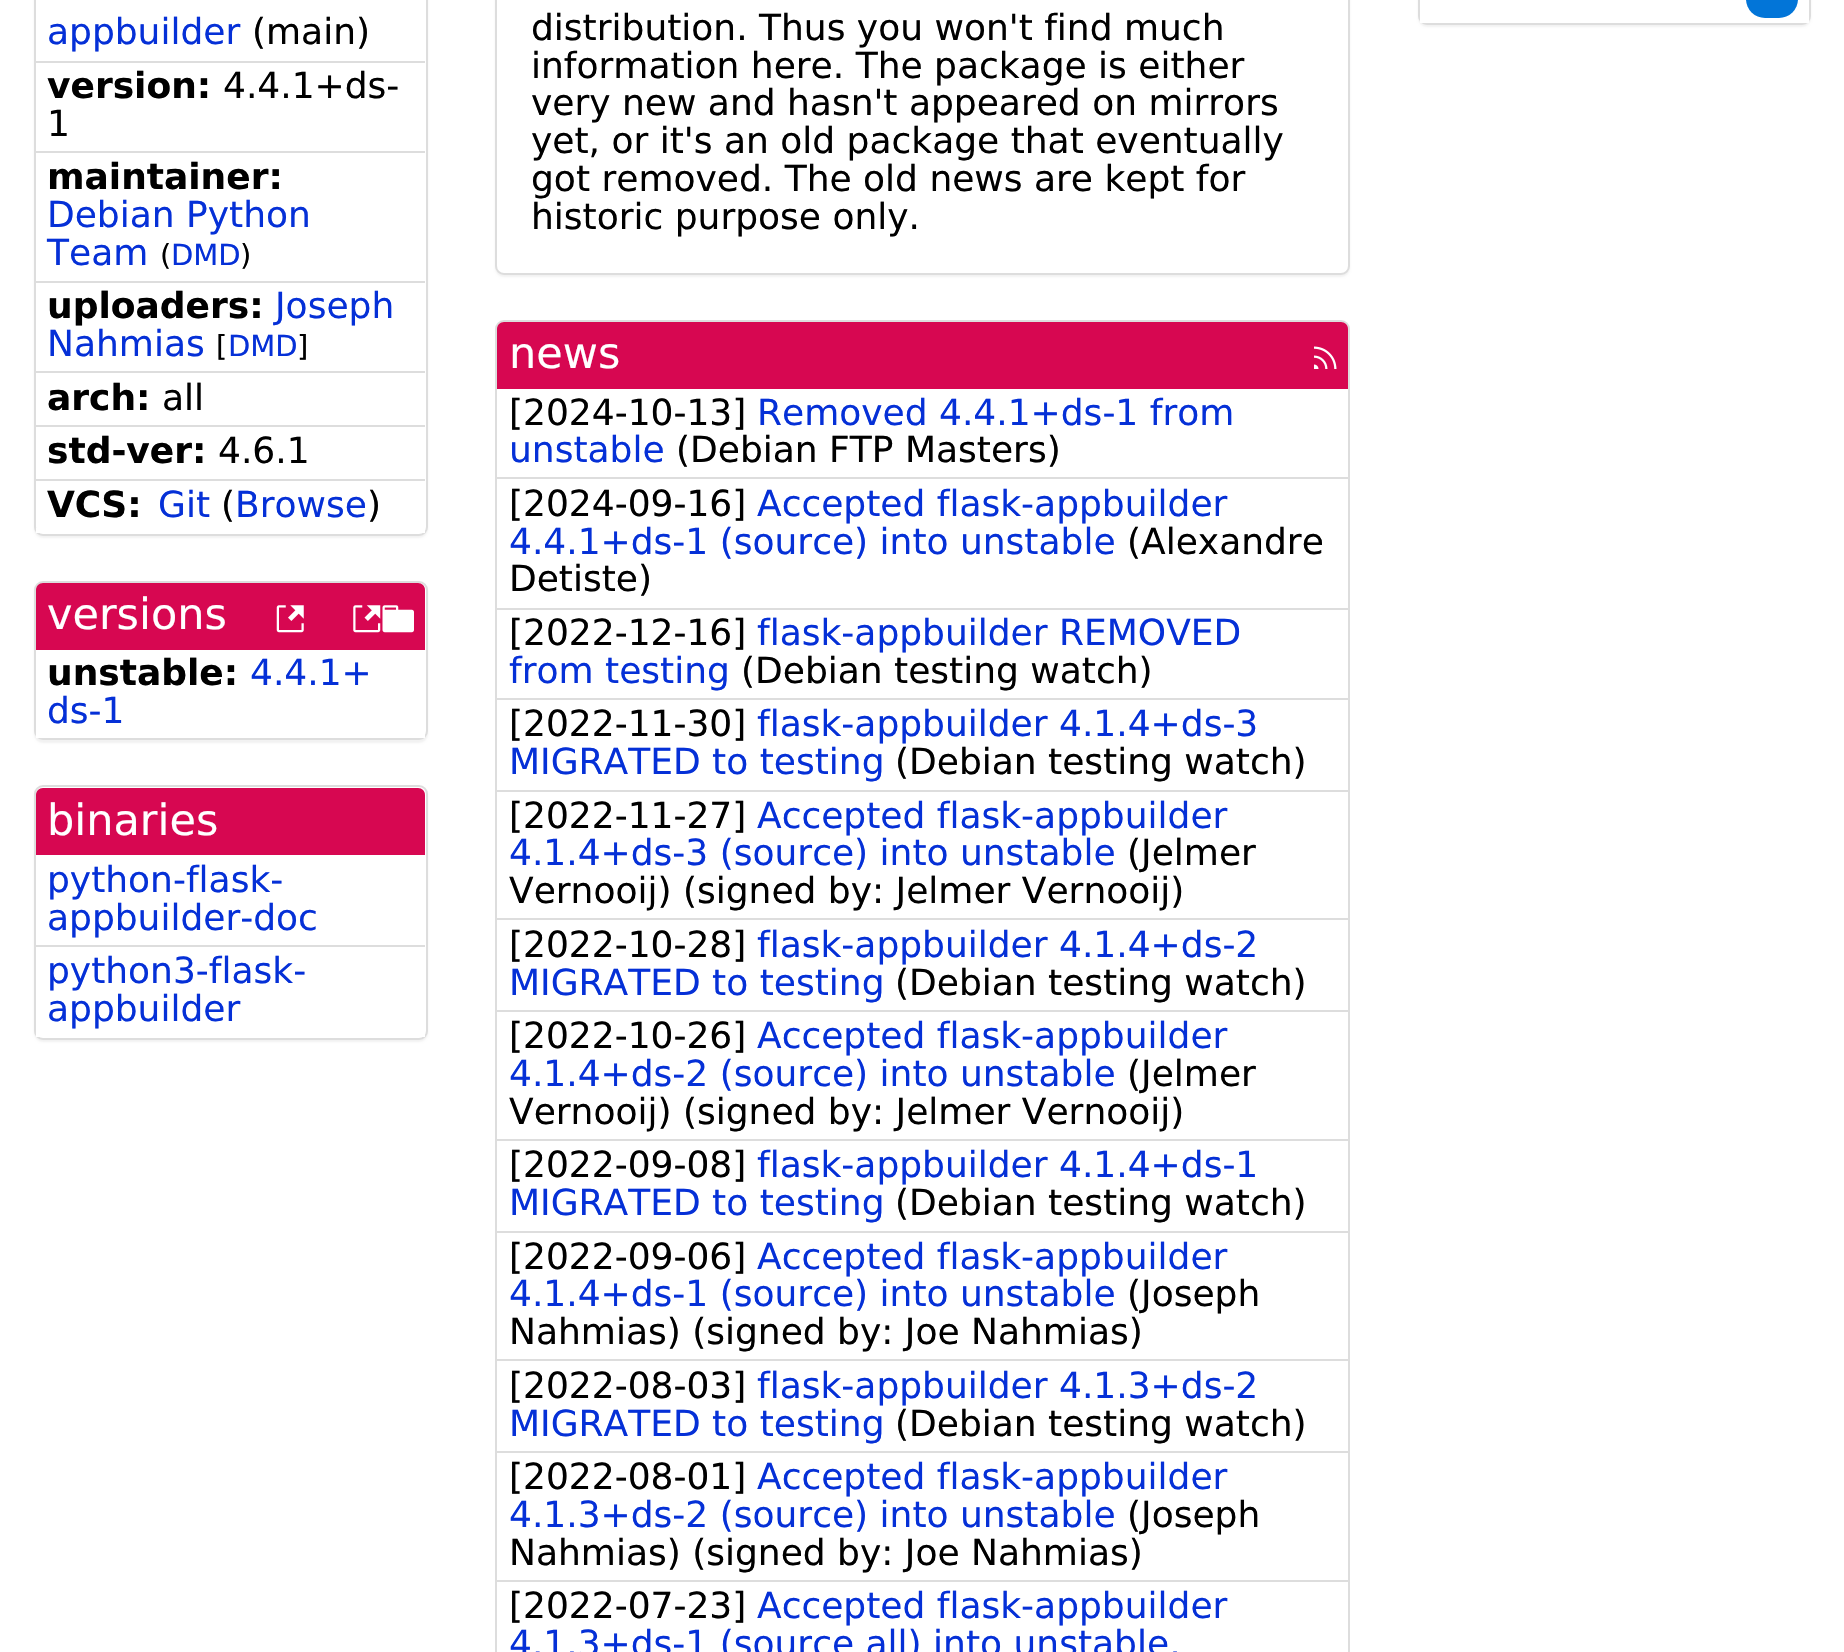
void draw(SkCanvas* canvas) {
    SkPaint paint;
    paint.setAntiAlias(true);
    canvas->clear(0xFFFFFFFF);
    paint.setColor(0x0D000000);
    paint.setMaskFilter(SkMaskFilter::MakeBlur(kNormal_SkBlurStyle, 1));
    canvas->drawRoundRect(SkRect::MakeXYWH(1418, -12, 393, 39), 9, 9, paint);
    paint.setMaskFilter(nullptr);
    paint.setStyle(SkPaint::kStroke_Style);
    paint.setStrokeWidth(2);
    paint.setColor(0xFFDDDDDD);
    canvas->drawRoundRect(SkRect::MakeXYWH(1419, -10, 391, 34), 8, 8, paint);
    paint.setStyle(SkPaint::kFill_Style);
    paint.setColor(0xFFFFFFFF);
    canvas->drawRect(SkRect::MakeXYWH(1420, 0, 389, 23), paint);
    paint.setColor(0xFF0275D8);
    canvas->drawRoundRect(SkRect::MakeXYWH(1746, -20, 52, 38), 20, 20, paint);
    paint.setColor(0x0D000000);
    paint.setMaskFilter(SkMaskFilter::MakeBlur(kNormal_SkBlurStyle, 1));
    canvas->drawRoundRect(SkRect::MakeXYWH(34, -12, 394, 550), 9, 9, paint);
    paint.setMaskFilter(nullptr);
    paint.setColor(0xFFFFFFFF);
    canvas->drawRoundRect(SkRect::MakeXYWH(35, -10, 392, 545), 8, 8, paint);
    paint.setStyle(SkPaint::kStroke_Style);
    paint.setColor(0xFFDDDDDD);
    canvas->drawRoundRect(SkRect::MakeXYWH(35, -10, 392, 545), 8, 8, paint);
    paint.setStyle(SkPaint::kFill_Style);
    paint.setColor(0xFFFFFFFF);
    canvas->drawRect(SkRect::MakeXYWH(36, 528, 389, 5), paint);
    paint.setColor(0xFFDDDDDD);
    canvas->drawRect(SkRect::MakeXYWH(36, 61, 389, 2), paint);
    SkFont font1(fontMgr->matchFamilyStyle("DejaVu Sans", SkFontStyle::Normal()), 36);
    font1.setSubpixel(true);
    paint.setColor(0xFF0530D7);
    canvas->drawString("appbuilder", 47, 44, font1, paint);
    paint.setColor(0xFF000000);
    canvas->drawString("(main)", 252, 44, font1, paint);
    paint.setColor(0xFFDDDDDD);
    canvas->drawRect(SkRect::MakeXYWH(36, 151, 389, 2), paint);
    SkFont font2(fontMgr->matchFamilyStyle("DejaVu Sans", SkFontStyle::Bold()), 36);
    font2.setSubpixel(true);
    paint.setColor(0xFF000000);
    canvas->drawString("version:", 47, 98, font2, paint);
    canvas->drawString("4.4.1+ds-", 223, 98, font1, paint);
    canvas->drawString("1", 47, 136, font1, paint);
    paint.setColor(0xFFDDDDDD);
    canvas->drawRect(SkRect::MakeXYWH(36, 281, 389, 2), paint);
    paint.setColor(0xFF000000);
    canvas->drawString("maintainer:", 47, 189, font2, paint);
    paint.setColor(0xFF0530D7);
    canvas->drawString("Debian Python", 47, 227, font1, paint);
    canvas->drawString("Team", 47, 265, font1, paint);
    SkFont font3(fontMgr->matchFamilyStyle("DejaVu Sans", SkFontStyle::Normal()), 29);
    font3.setSubpixel(true);
    paint.setColor(0xFF000000);
    canvas->drawString("(", 160, 265, font3, paint);
    paint.setColor(0xFF0530D7);
    canvas->drawString("DMD", 171, 265, font3, paint);
    paint.setColor(0xFF000000);
    canvas->drawString(")", 240, 265, font3, paint);
    paint.setColor(0xFFDDDDDD);
    canvas->drawRect(SkRect::MakeXYWH(36, 371, 389, 2), paint);
    paint.setColor(0xFF000000);
    canvas->drawString("uploaders:", 47, 318, font2, paint);
    paint.setColor(0xFF0530D7);
    canvas->drawString("Joseph", 275, 318, font1, paint);
    canvas->drawString("Nahmias", 47, 356, font1, paint);
    paint.setColor(0xFF000000);
    canvas->drawString("[", 216, 356, font3, paint);
    paint.setColor(0xFF0530D7);
    canvas->drawString("DMD", 228, 356, font3, paint);
    paint.setColor(0xFF000000);
    canvas->drawString("]", 297, 356, font3, paint);
    paint.setColor(0xFFDDDDDD);
    canvas->drawRect(SkRect::MakeXYWH(36, 425, 389, 2), paint);
    paint.setColor(0xFF000000);
    canvas->drawString("arch:", 47, 410, font2, paint);
    canvas->drawString("all", 162, 410, font1, paint);
    canvas->drawString("std-ver:", 47, 463, font2, paint);
    canvas->drawString("4.6.1", 218, 463, font1, paint);
    paint.setColor(0xFFDDDDDD);
    canvas->drawRect(SkRect::MakeXYWH(36, 479, 389, 2), paint);
    paint.setColor(0xFF000000);
    canvas->drawString("VCS:", 47, 517, font2, paint);
    paint.setColor(0xFF0530D7);
    canvas->drawString("Git", 158, 517, font1, paint);
    paint.setColor(0xFF000000);
    canvas->drawString("(", 221, 517, font1, paint);
    paint.setColor(0xFF0530D7);
    canvas->drawString("Browse", 235, 517, font1, paint);
    paint.setColor(0xFF000000);
    canvas->drawString(")", 367, 517, font1, paint);
    paint.setColor(0x0D000000);
    paint.setMaskFilter(SkMaskFilter::MakeBlur(kNormal_SkBlurStyle, 1));
    canvas->drawRoundRect(SkRect::MakeXYWH(34, 583, 394, 160), 9, 9, paint);
    paint.setMaskFilter(nullptr);
    paint.setColor(0xFFFFFFFF);
    canvas->drawRoundRect(SkRect::MakeXYWH(35, 582, 392, 157), 8, 8, paint);
    paint.setStyle(SkPaint::kStroke_Style);
    paint.setColor(0xFFDDDDDD);
    canvas->drawRoundRect(SkRect::MakeXYWH(35, 582, 392, 157), 8, 8, paint);
    paint.setStyle(SkPaint::kFill_Style);
    paint.setColor(0xFFD70751);
    canvas->drawPath(SkPathBuilder().moveTo(43, 583).lineTo(418, 583).cubicTo(422, 583, 425, 586, 425, 590).lineTo(425, 653).lineTo(36, 653).lineTo(36, 590).cubicTo(36, 586, 39, 583, 43, 583).close().detach(), paint);
    SkFont font4(fontMgr->matchFamilyStyle("DejaVu Sans", SkFontStyle::Normal()), 43);
    font4.setSubpixel(true);
    paint.setColor(0xFFFFFFFF);
    canvas->drawString("versions", 47, 629, font4, paint);
    canvas->drawImageRect(SkImages::DeferredFromEncodedData(SkData::MakeFromFileName("img1.png")), SkRect::MakeXYWH(276, 605, 28, 28), SkSamplingOptions());
    canvas->drawImageRect(SkImages::DeferredFromEncodedData(SkData::MakeFromFileName("img2.png")), SkRect::MakeXYWH(353, 605, 28, 28), SkSamplingOptions());
    canvas->drawImageRect(SkImages::DeferredFromEncodedData(SkData::MakeFromFileName("img3.png")), SkRect::MakeXYWH(382, 605, 32, 28), SkSamplingOptions());
    canvas->drawRect(SkRect::MakeXYWH(36, 650, 389, 88), paint);
    paint.setColor(0xFF000000);
    canvas->drawString("unstable:", 47, 685, font2, paint);
    paint.setColor(0xFF0530D7);
    canvas->drawString("4.4.1+", 250, 685, font1, paint);
    canvas->drawString("ds-1", 47, 723, font1, paint);
    paint.setColor(0x0D000000);
    paint.setMaskFilter(SkMaskFilter::MakeBlur(kNormal_SkBlurStyle, 1));
    canvas->drawRoundRect(SkRect::MakeXYWH(34, 788, 394, 254), 9, 9, paint);
    paint.setMaskFilter(nullptr);
    paint.setColor(0xFFFFFFFF);
    canvas->drawRoundRect(SkRect::MakeXYWH(35, 786, 392, 253), 8, 8, paint);
    paint.setStyle(SkPaint::kStroke_Style);
    paint.setColor(0xFFDDDDDD);
    canvas->drawRoundRect(SkRect::MakeXYWH(35, 786, 392, 253), 8, 8, paint);
    paint.setStyle(SkPaint::kFill_Style);
    paint.setColor(0xFFD70751);
    canvas->drawPath(SkPathBuilder().moveTo(43, 788).lineTo(418, 788).cubicTo(422, 788, 425, 791, 425, 795).lineTo(425, 857).lineTo(36, 857).lineTo(36, 795).cubicTo(36, 791, 39, 788, 43, 788).close().detach(), paint);
    paint.setColor(0xFFFFFFFF);
    canvas->drawString("binaries", 47, 835, font4, paint);
    canvas->drawRect(SkRect::MakeXYWH(36, 855, 389, 182), paint);
    paint.setColor(0xFF0530D7);
    canvas->drawString("python-flask-", 47, 892, font1, paint);
    canvas->drawString("appbuilder-doc", 47, 930, font1, paint);
    paint.setColor(0xFFDDDDDD);
    canvas->drawRect(SkRect::MakeXYWH(36, 945, 389, 2), paint);
    paint.setColor(0xFF0530D7);
    canvas->drawString("python3-flask-", 47, 983, font1, paint);
    canvas->drawString("appbuilder", 47, 1021, font1, paint);
    paint.setColor(0x0D000000);
    paint.setMaskFilter(SkMaskFilter::MakeBlur(kNormal_SkBlurStyle, 1));
    canvas->drawRoundRect(SkRect::MakeXYWH(495, -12, 855, 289), 9, 9, paint);
    paint.setMaskFilter(nullptr);
    paint.setColor(0xFFFFFFFF);
    canvas->drawRoundRect(SkRect::MakeXYWH(496, -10, 853, 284), 8, 8, paint);
    paint.setStyle(SkPaint::kStroke_Style);
    paint.setColor(0xFFDDDDDD);
    canvas->drawRoundRect(SkRect::MakeXYWH(496, -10, 853, 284), 8, 8, paint);
    paint.setStyle(SkPaint::kFill_Style);
    paint.setColor(0xFF000000);
    canvas->drawString("distribution. Thus you won't find much", 531, 40, font1, paint);
    canvas->drawString("information here. The package is either", 531, 78, font1, paint);
    canvas->drawString("very new and hasn't appeared on mirrors", 531, 115, font1, paint);
    canvas->drawString("yet, or it's an old package that eventually", 531, 153, font1, paint);
    canvas->drawString("got removed. The old news are kept for", 531, 191, font1, paint);
    canvas->drawString("historic purpose only.", 531, 229, font1, paint);
    paint.setStyle(SkPaint::kStroke_Style);
    paint.setColor(0xFFDDDDDD);
    canvas->drawRoundRect(SkRect::MakeXYWH(496, 321, 853, 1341), 8, 8, paint);
    paint.setStyle(SkPaint::kFill_Style);
    paint.setColor(0xFFD70751);
    canvas->drawPath(SkPathBuilder().moveTo(504, 322).lineTo(1341, 322).cubicTo(1345, 322, 1348, 325, 1348, 329).lineTo(1348, 392).lineTo(497, 392).lineTo(497, 329).cubicTo(497, 325, 500, 322, 504, 322).close().detach(), paint);
    paint.setColor(0xFFFFFFFF);
    canvas->drawString("news", 509, 368, font4, paint);
    canvas->drawImageRect(SkImages::DeferredFromEncodedData(SkData::MakeFromFileName("img4.png")), SkRect::MakeXYWH(1314, 346, 23, 23), SkSamplingOptions());
    canvas->drawRect(SkRect::MakeXYWH(497, 389, 851, 3), paint);
    paint.setColor(0xFFDDDDDD);
    canvas->drawRect(SkRect::MakeXYWH(497, 477, 851, 2), paint);
    paint.setColor(0xFF000000);
    canvas->drawString("[2024-10-13]", 509, 425, font1, paint);
    paint.setColor(0xFF0530D7);
    canvas->drawString("Removed 4.4.1+ds-1 from", 757, 425, font1, paint);
    canvas->drawString("unstable", 509, 462, font1, paint);
    paint.setColor(0xFF000000);
    canvas->drawString("(Debian FTP Masters)", 676, 462, font1, paint);
    paint.setColor(0xFFDDDDDD);
    canvas->drawRect(SkRect::MakeXYWH(497, 608, 851, 2), paint);
    paint.setColor(0xFF000000);
    canvas->drawString("[2024-09-16]", 509, 516, font1, paint);
    paint.setColor(0xFF0530D7);
    canvas->drawString("Accepted flask-appbuilder", 757, 516, font1, paint);
    canvas->drawString("4.4.1+ds-1 (source) into unstable", 509, 554, font1, paint);
    paint.setColor(0xFF000000);
    canvas->drawString("(Alexandre", 1127, 554, font1, paint);
    canvas->drawString("Detiste)", 509, 591, font1, paint);
    paint.setColor(0xFFDDDDDD);
    canvas->drawRect(SkRect::MakeXYWH(497, 698, 851, 2), paint);
    paint.setColor(0xFF000000);
    canvas->drawString("[2022-12-16]", 509, 645, font1, paint);
    paint.setColor(0xFF0530D7);
    canvas->drawString("flask-appbuilder REMOVED", 757, 645, font1, paint);
    canvas->drawString("from testing", 509, 683, font1, paint);
    paint.setColor(0xFF000000);
    canvas->drawString("(Debian testing watch)", 741, 683, font1, paint);
    paint.setColor(0xFFDDDDDD);
    canvas->drawRect(SkRect::MakeXYWH(497, 790, 851, 2), paint);
    paint.setColor(0xFF000000);
    canvas->drawString("[2022-11-30]", 509, 736, font1, paint);
    paint.setColor(0xFF0530D7);
    canvas->drawString("flask-appbuilder 4.1.4+ds-3", 757, 736, font1, paint);
    canvas->drawString("MIGRATED to testing", 509, 774, font1, paint);
    paint.setColor(0xFF000000);
    canvas->drawString("(Debian testing watch)", 895, 774, font1, paint);
    paint.setColor(0xFFDDDDDD);
    canvas->drawRect(SkRect::MakeXYWH(497, 918, 851, 2), paint);
    paint.setColor(0xFF000000);
    canvas->drawString("[2022-11-27]", 509, 828, font1, paint);
    paint.setColor(0xFF0530D7);
    canvas->drawString("Accepted flask-appbuilder", 757, 828, font1, paint);
    canvas->drawString("4.1.4+ds-3 (source) into unstable", 509, 865, font1, paint);
    paint.setColor(0xFF000000);
    canvas->drawString("(Jelmer", 1127, 865, font1, paint);
    canvas->drawString("Vernooĳ) (signed by: Jelmer Vernooij)", 509, 903, font1, paint);
    paint.setColor(0xFFDDDDDD);
    canvas->drawRect(SkRect::MakeXYWH(497, 1010, 851, 2), paint);
    paint.setColor(0xFF000000);
    canvas->drawString("[2022-10-28]", 509, 957, font1, paint);
    paint.setColor(0xFF0530D7);
    canvas->drawString("flask-appbuilder 4.1.4+ds-2", 757, 957, font1, paint);
    canvas->drawString("MIGRATED to testing", 509, 995, font1, paint);
    paint.setColor(0xFF000000);
    canvas->drawString("(Debian testing watch)", 895, 995, font1, paint);
    paint.setColor(0xFFDDDDDD);
    canvas->drawRect(SkRect::MakeXYWH(497, 1139, 851, 2), paint);
    paint.setColor(0xFF000000);
    canvas->drawString("[2022-10-26]", 509, 1048, font1, paint);
    paint.setColor(0xFF0530D7);
    canvas->drawString("Accepted flask-appbuilder", 757, 1048, font1, paint);
    canvas->drawString("4.1.4+ds-2 (source) into unstable", 509, 1086, font1, paint);
    paint.setColor(0xFF000000);
    canvas->drawString("(Jelmer", 1127, 1086, font1, paint);
    canvas->drawString("Vernooĳ) (signed by: Jelmer Vernooij)", 509, 1124, font1, paint);
    paint.setColor(0xFFDDDDDD);
    canvas->drawRect(SkRect::MakeXYWH(497, 1231, 851, 2), paint);
    paint.setColor(0xFF000000);
    canvas->drawString("[2022-09-08]", 509, 1177, font1, paint);
    paint.setColor(0xFF0530D7);
    canvas->drawString("flask-appbuilder 4.1.4+ds-1", 757, 1177, font1, paint);
    canvas->drawString("MIGRATED to testing", 509, 1215, font1, paint);
    paint.setColor(0xFF000000);
    canvas->drawString("(Debian testing watch)", 895, 1215, font1, paint);
    paint.setColor(0xFFDDDDDD);
    canvas->drawRect(SkRect::MakeXYWH(497, 1359, 851, 2), paint);
    paint.setColor(0xFF000000);
    canvas->drawString("[2022-09-06]", 509, 1269, font1, paint);
    paint.setColor(0xFF0530D7);
    canvas->drawString("Accepted flask-appbuilder", 757, 1269, font1, paint);
    canvas->drawString("4.1.4+ds-1 (source) into unstable", 509, 1306, font1, paint);
    paint.setColor(0xFF000000);
    canvas->drawString("(Joseph", 1127, 1306, font1, paint);
    canvas->drawString("Nahmias) (signed by: Joe Nahmias)", 509, 1344, font1, paint);
    paint.setColor(0xFFDDDDDD);
    canvas->drawRect(SkRect::MakeXYWH(497, 1451, 851, 2), paint);
    paint.setColor(0xFF000000);
    canvas->drawString("[2022-08-03]", 509, 1398, font1, paint);
    paint.setColor(0xFF0530D7);
    canvas->drawString("flask-appbuilder 4.1.3+ds-2", 757, 1398, font1, paint);
    canvas->drawString("MIGRATED to testing", 509, 1436, font1, paint);
    paint.setColor(0xFF000000);
    canvas->drawString("(Debian testing watch)", 895, 1436, font1, paint);
    canvas->drawString("[2022-08-01]", 509, 1489, font1, paint);
    paint.setColor(0xFF0530D7);
    canvas->drawString("Accepted flask-appbuilder", 757, 1489, font1, paint);
    canvas->drawString("4.1.3+ds-2 (source) into unstable", 509, 1527, font1, paint);
    paint.setColor(0xFF000000);
    canvas->drawString("(Joseph", 1127, 1527, font1, paint);
    canvas->drawString("Nahmias) (signed by: Joe Nahmias)", 509, 1565, font1, paint);
    paint.setColor(0xFFDDDDDD);
    canvas->drawRect(SkRect::MakeXYWH(497, 1580, 851, 2), paint);
    paint.setColor(0xFF000000);
    canvas->drawString("[2022-07-23]", 509, 1618, font1, paint);
    paint.setColor(0xFF0530D7);
    canvas->drawString("Accepted flask-appbuilder", 757, 1618, font1, paint);
    canvas->drawString("4.1.3+ds-1 (source all) into unstable,", 509, 1656, font1, paint);
}
